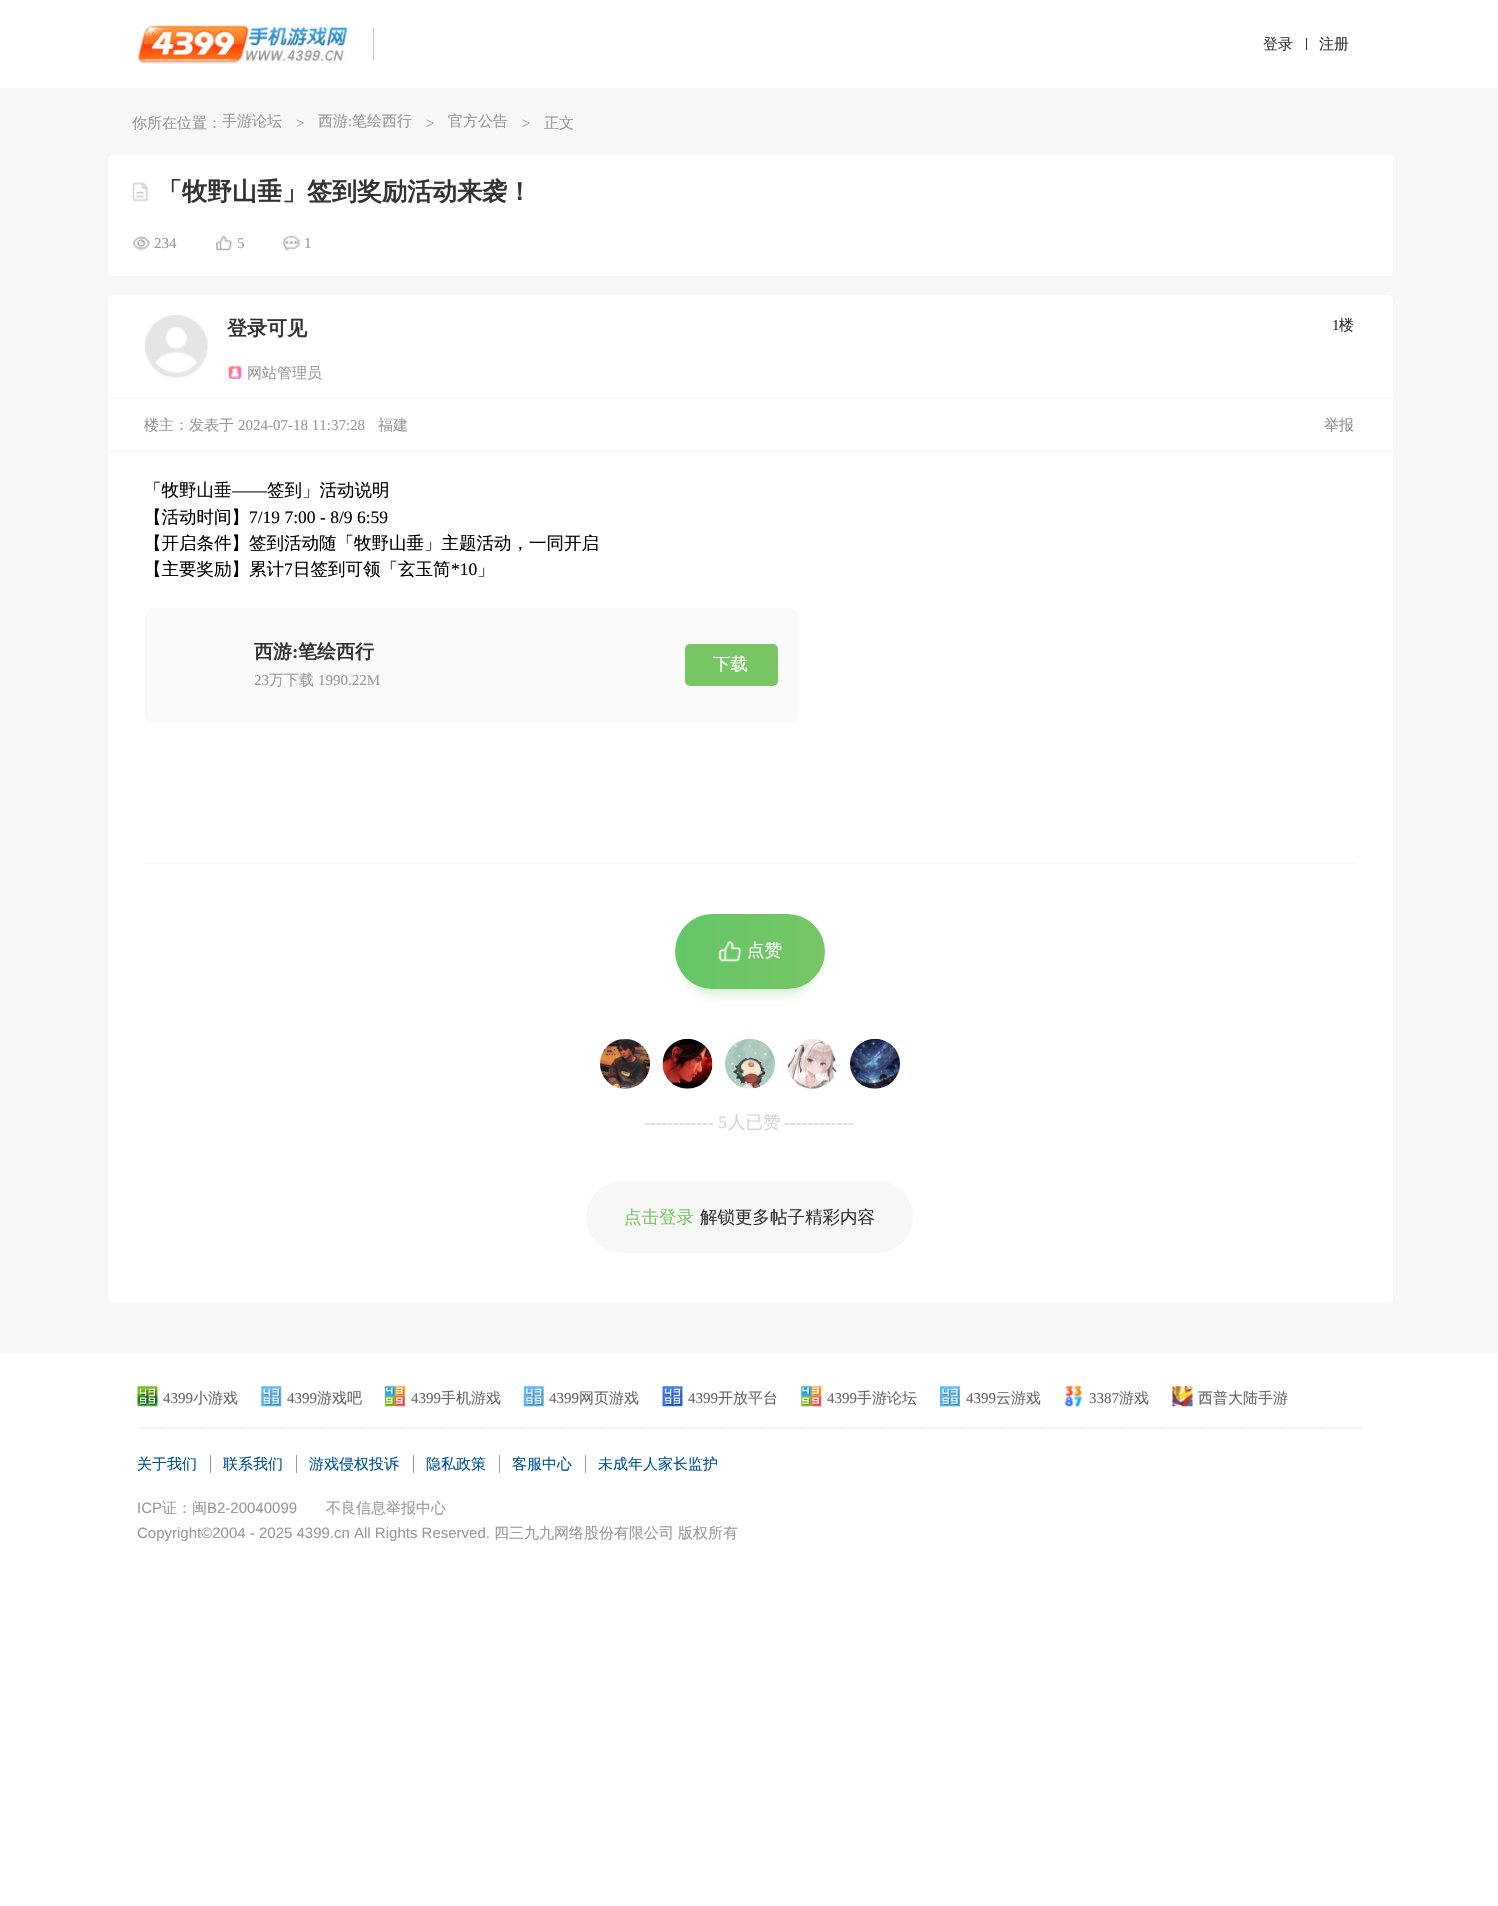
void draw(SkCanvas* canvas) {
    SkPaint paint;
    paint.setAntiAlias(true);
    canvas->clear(0xFFFFFFFF);
    paint.setColor(0xFFF7F7F7);
    canvas->drawRect(SkRect::MakeXYWH(0, 88, 1498, 1265), paint);
    canvas->drawImageRect(SkImages::DeferredFromEncodedData(SkData::MakeFromFileName("img1.png")), SkRect::MakeXYWH(137, 23, 211, 41), SkSamplingOptions());
    paint.setColor(0xFFC4C4C4);
    canvas->drawRect(SkRect::MakeXYWH(373, 28, 1, 32), paint);
    SkFont font1(fontMgr->matchFamilyStyle("WenQuanYi Zen Hei", SkFontStyle(500, SkFontStyle::kNormal_Width, SkFontStyle::kUpright_Slant)), 15);
    font1.setSubpixel(true);
    paint.setColor(0xFF333333);
    canvas->drawString("登录", 1263, 49, font1, paint);
    canvas->drawRect(SkRect::MakeXYWH(1306, 38, 1, 12), paint);
    canvas->drawString("注册", 1319, 49, font1, paint);
    paint.setColor(0xFF999999);
    canvas->drawString("你所在位置：", 132, 128, font1, paint);
    canvas->drawString("手游论坛", 222, 126, font1, paint);
    SkFont font2(fontMgr->matchFamilyStyle("Liberation Serif", SkFontStyle::Normal()), 15);
    font2.setSubpixel(true);
    canvas->drawString(">", 296, 128, font2, paint);
    canvas->drawString("西游", 318, 126, font1, paint);
    canvas->drawString(":", 348, 126, font2, paint);
    canvas->drawString("笔绘西行", 352, 126, font1, paint);
    canvas->drawString(">", 426, 128, font2, paint);
    canvas->drawString("官方公告", 448, 126, font1, paint);
    canvas->drawString(">", 522, 128, font2, paint);
    canvas->drawString("正文", 544, 128, font1, paint);
    paint.setColor(0xFFFFFFFF);
    canvas->drawRoundRect(SkRect::MakeXYWH(108, 155, 1285, 121), 5, 5, paint);
    canvas->drawImageRect(SkImages::DeferredFromEncodedData(SkData::MakeFromFileName("img2.png")), SkRect::MakeXYWH(132, 182, 16, 20), SkSamplingOptions());
    SkFont font3(fontMgr->matchFamilyStyle("WenQuanYi Zen Hei", SkFontStyle::Bold()), 25);
    font3.setSubpixel(true);
    paint.setColor(0xFF333333);
    canvas->drawString("「牧野山垂」签到奖励活动来袭！", 157, 200, font3, paint);
    canvas->drawImageRect(SkImages::DeferredFromEncodedData(SkData::MakeFromFileName("img3.png")), SkRect::MakeXYWH(132, 236, 18, 15), SkSamplingOptions());
    paint.setColor(0xFF999999);
    canvas->drawString("234", 154, 248, font2, paint);
    canvas->drawImageRect(SkImages::DeferredFromEncodedData(SkData::MakeFromFileName("img4.png")), SkRect::MakeXYWH(216, 236, 16, 15), SkSamplingOptions());
    canvas->drawString("5", 237, 248, font2, paint);
    canvas->drawImageRect(SkImages::DeferredFromEncodedData(SkData::MakeFromFileName("img5.png")), SkRect::MakeXYWH(282, 236, 18, 15), SkSamplingOptions());
    canvas->drawString("1", 304, 248, font2, paint);
    paint.setColor(0xFFFFFFFF);
    canvas->drawRoundRect(SkRect::MakeXYWH(108, 295, 1285, 1008), 5, 5, paint);
    canvas->drawImageRect(SkImages::DeferredFromEncodedData(SkData::MakeFromFileName("img6.png")), SkRect::MakeXYWH(145, 315, 63, 63), SkSamplingOptions());
    SkFont font4(fontMgr->matchFamilyStyle("WenQuanYi Zen Hei", SkFontStyle::Bold()), 20);
    font4.setSubpixel(true);
    paint.setColor(0xFF333333);
    canvas->drawString("登录可见", 227, 335, font4, paint);
    canvas->drawImageRect(SkImages::DeferredFromEncodedData(SkData::MakeFromFileName("img7.png")), SkRect::MakeXYWH(228, 366, 14, 13), SkSamplingOptions());
    paint.setColor(0xFF999999);
    canvas->drawString("网站管理员", 247, 378, font1, paint);
    paint.setColor(0xFF333333);
    canvas->drawString("1", 1332, 330, font2, paint);
    canvas->drawString("楼", 1339, 330, font1, paint);
    paint.setColor(0xFFF7F7F7);
    canvas->drawRect(SkRect::MakeXYWH(108, 398, 1285, 1), paint);
    canvas->drawRect(SkRect::MakeXYWH(108, 451, 1285, 1), paint);
    paint.setColor(0xFF999999);
    canvas->drawString("楼主：发表于", 144, 430, font1, paint);
    canvas->drawString("2024-07-18 11:37:28", 238, 430, font2, paint);
    canvas->drawString("福建", 378, 430, font1, paint);
    paint.setColor(0xFF8F8F8F);
    canvas->drawString("举报", 1324, 430, font1, paint);
    SkFont font5(fontMgr->matchFamilyStyle("WenQuanYi Zen Hei", SkFontStyle(500, SkFontStyle::kNormal_Width, SkFontStyle::kUpright_Slant)), 17.5f);
    font5.setSubpixel(true);
    paint.setColor(0xFF000000);
    canvas->drawString("「牧野山垂", 144, 496, font5, paint);
    SkFont font6(fontMgr->matchFamilyStyle("Liberation Serif", SkFontStyle::Normal()), 17.5f);
    font6.setSubpixel(true);
    canvas->drawString("——", 232, 496, font6, paint);
    canvas->drawString("签到」活动说明", 267, 496, font5, paint);
    canvas->drawString("【活动时间】", 144, 523, font5, paint);
    canvas->drawString("7/19 7:00 - 8/9 6:59", 249, 523, font6, paint);
    canvas->drawString("【开启条件】签到活动随「牧野山垂」主题活动，一同开启", 144, 549, font5, paint);
    canvas->drawString("【主要奖励】累计", 144, 575, font5, paint);
    canvas->drawString("7", 284, 575, font6, paint);
    canvas->drawString("日签到可领「玄玉简", 293, 575, font5, paint);
    canvas->drawString("*10", 451, 575, font6, paint);
    canvas->drawString("」", 477, 575, font5, paint);
    paint.setColor(0xFFFAFAFA);
    canvas->drawRoundRect(SkRect::MakeXYWH(145, 608, 653, 115), 8, 8, paint);
    SkFont font7(fontMgr->matchFamilyStyle("WenQuanYi Zen Hei", SkFontStyle::Bold()), 19);
    font7.setSubpixel(true);
    paint.setColor(0xFF333333);
    canvas->drawString("西游", 254, 658, font7, paint);
    SkFont font8(fontMgr->matchFamilyStyle("Liberation Serif", SkFontStyle::Bold()), 19);
    font8.setSubpixel(true);
    canvas->drawString(":", 292, 658, font8, paint);
    canvas->drawString("笔绘西行", 298, 658, font7, paint);
    paint.setColor(0xFF999999);
    canvas->drawString("23", 254, 685, font2, paint);
    canvas->drawString("万下载", 269, 685, font1, paint);
    canvas->drawString("1990.22M", 318, 685, font2, paint);
    paint.setColor(0xFF78C664);
    canvas->drawRoundRect(SkRect::MakeXYWH(685, 644, 93, 42), 5, 5, paint);
    paint.setColor(0xFFFFFFFF);
    canvas->drawString("下载", 713, 670, font5, paint);
    paint.setColor(0xFFF7F7F7);
    canvas->drawRect(SkRect::MakeXYWH(145, 863, 1210, 1), paint);
    paint.setColor(0x4D69C667);
    paint.setMaskFilter(SkMaskFilter::MakeBlur(kNormal_SkBlurStyle, 6));
    canvas->drawRoundRect(SkRect::MakeXYWH(688, 944, 125, 50), 25, 25, paint);
    paint.setMaskFilter(nullptr);
    {
        const SkColor colors[] = {0xFF64C668, 0xFF78C664};
        const float stops[] = {0, 1};
        const SkPoint ends[] = {{675, 951}, {825, 951}};
        paint.setShader(SkGradientShader::MakeLinear(ends, colors, stops, 2, SkTileMode::kClamp));
        paint.setAlpha(255);
    }
    canvas->drawRoundRect(SkRect::MakeXYWH(675, 914, 150, 75), 37.5f, 37.5f, paint);
    canvas->drawImageRect(SkImages::DeferredFromEncodedData(SkData::MakeFromFileName("img8.png")), SkRect::MakeXYWH(718, 941, 24, 21), SkSamplingOptions());
    paint.setShader(nullptr);
    paint.setColor(0xFFFFFFFF);
    canvas->drawString("点赞", 747, 956, font5, paint);
    canvas->drawImageRect(SkImages::DeferredFromEncodedData(SkData::MakeFromFileName("img9.png")), SkRect::MakeXYWH(600, 1038, 50, 51), SkSamplingOptions());
    canvas->drawImageRect(SkImages::DeferredFromEncodedData(SkData::MakeFromFileName("img10.png")), SkRect::MakeXYWH(662, 1038, 51, 51), SkSamplingOptions());
    canvas->drawImageRect(SkImages::DeferredFromEncodedData(SkData::MakeFromFileName("img11.png")), SkRect::MakeXYWH(725, 1039, 50, 50), SkSamplingOptions());
    canvas->drawImageRect(SkImages::DeferredFromEncodedData(SkData::MakeFromFileName("img12.png")), SkRect::MakeXYWH(787, 1039, 50, 50), SkSamplingOptions());
    canvas->drawImageRect(SkImages::DeferredFromEncodedData(SkData::MakeFromFileName("img13.png")), SkRect::MakeXYWH(850, 1038, 50, 51), SkSamplingOptions());
    paint.setColor(0xFFD4D4D4);
    canvas->drawString("------------ 5", 644, 1128, font6, paint);
    canvas->drawString("人已赞", 728, 1128, font5, paint);
    canvas->drawString("------------", 784, 1128, font6, paint);
    paint.setColor(0xFFF7F7F7);
    canvas->drawRoundRect(SkRect::MakeXYWH(586, 1181, 327, 72), 36, 36, paint);
    paint.setColor(0xFF78C664);
    canvas->drawString("点击登录", 624, 1223, font5, paint);
    paint.setColor(0xFF333333);
    canvas->drawString("解锁更多帖子精彩内容", 700, 1223, font5, paint);
    canvas->drawImageRect(SkImages::DeferredFromEncodedData(SkData::MakeFromFileName("img14.png")), SkRect::MakeXYWH(137, 1386, 21, 21), SkSamplingOptions());
    paint.setColor(0xFF666666);
    canvas->drawString("4399", 163, 1403, font2, paint);
    canvas->drawString("小游戏", 193, 1403, font1, paint);
    canvas->drawImageRect(SkImages::DeferredFromEncodedData(SkData::MakeFromFileName("img15.png")), SkRect::MakeXYWH(261, 1386, 21, 21), SkSamplingOptions());
    canvas->drawString("4399", 287, 1403, font2, paint);
    canvas->drawString("游戏吧", 317, 1403, font1, paint);
    canvas->drawImageRect(SkImages::DeferredFromEncodedData(SkData::MakeFromFileName("img16.png")), SkRect::MakeXYWH(385, 1386, 20, 21), SkSamplingOptions());
    canvas->drawString("4399", 411, 1403, font2, paint);
    canvas->drawString("手机游戏", 441, 1403, font1, paint);
    canvas->drawImageRect(SkImages::DeferredFromEncodedData(SkData::MakeFromFileName("img17.png")), SkRect::MakeXYWH(523, 1386, 21, 21), SkSamplingOptions());
    canvas->drawString("4399", 549, 1403, font2, paint);
    canvas->drawString("网页游戏", 579, 1403, font1, paint);
    canvas->drawImageRect(SkImages::DeferredFromEncodedData(SkData::MakeFromFileName("img18.png")), SkRect::MakeXYWH(662, 1386, 21, 21), SkSamplingOptions());
    canvas->drawString("4399", 688, 1403, font2, paint);
    canvas->drawString("开放平台", 718, 1403, font1, paint);
    canvas->drawImageRect(SkImages::DeferredFromEncodedData(SkData::MakeFromFileName("img19.png")), SkRect::MakeXYWH(801, 1386, 21, 21), SkSamplingOptions());
    canvas->drawString("4399", 827, 1403, font2, paint);
    canvas->drawString("手游论坛", 857, 1403, font1, paint);
    canvas->drawImageRect(SkImages::DeferredFromEncodedData(SkData::MakeFromFileName("img20.png")), SkRect::MakeXYWH(940, 1386, 20, 21), SkSamplingOptions());
    canvas->drawString("4399", 966, 1403, font2, paint);
    canvas->drawString("云游戏", 996, 1403, font1, paint);
    canvas->drawImageRect(SkImages::DeferredFromEncodedData(SkData::MakeFromFileName("img21.png")), SkRect::MakeXYWH(1064, 1386, 19, 21), SkSamplingOptions());
    canvas->drawString("3387", 1089, 1403, font2, paint);
    canvas->drawString("游戏", 1119, 1403, font1, paint);
    canvas->drawImageRect(SkImages::DeferredFromEncodedData(SkData::MakeFromFileName("img22.png")), SkRect::MakeXYWH(1172, 1386, 21, 21), SkSamplingOptions());
    canvas->drawString("西普大陆手游", 1198, 1403, font1, paint);
    paint.setStyle(SkPaint::kStroke_Style);
    paint.setStrokeWidth(1.2f);
    paint.setColor(0xFFD5D5D5);
    paint.setPathEffect(SkDashPathEffect::Make({{1.25f, 1.25f}}, 0));
    canvas->drawPath(SkPathBuilder().moveTo(137.5f, 1428).lineTo(1362.5f, 1428).detach(), paint);
    paint.setPathEffect(nullptr);
    paint.setStyle(SkPaint::kFill_Style);
    paint.setColor(0xFF00519D);
    canvas->drawString("关于我们", 137, 1469, font1, paint);
    paint.setColor(0xFF999999);
    canvas->drawRect(SkRect::MakeXYWH(210, 1455, 1, 18), paint);
    paint.setColor(0xFF00519D);
    canvas->drawString("联系我们", 223, 1469, font1, paint);
    paint.setColor(0xFF999999);
    canvas->drawRect(SkRect::MakeXYWH(296, 1455, 1, 18), paint);
    paint.setColor(0xFF00519D);
    canvas->drawString("游戏侵权投诉", 309, 1469, font1, paint);
    paint.setColor(0xFF999999);
    canvas->drawRect(SkRect::MakeXYWH(413, 1455, 1, 18), paint);
    paint.setColor(0xFF00519D);
    canvas->drawString("隐私政策", 426, 1469, font1, paint);
    paint.setColor(0xFF999999);
    canvas->drawRect(SkRect::MakeXYWH(499, 1455, 1, 18), paint);
    paint.setColor(0xFF00519D);
    canvas->drawString("客服中心", 512, 1469, font1, paint);
    paint.setColor(0xFF999999);
    canvas->drawRect(SkRect::MakeXYWH(585, 1455, 1, 18), paint);
    paint.setColor(0xFF00519D);
    canvas->drawString("未成年人家长监护", 598, 1469, font1, paint);
    SkFont font9(fontMgr->matchFamilyStyle("Liberation Sans", SkFontStyle::Normal()), 15);
    font9.setSubpixel(true);
    paint.setColor(0xFF999999);
    canvas->drawString("ICP", 137, 1513, font9, paint);
    canvas->drawString("证：闽", 162, 1513, font1, paint);
    canvas->drawString("B2-20040099", 207, 1513, font9, paint);
    canvas->drawString("不良信息举报中心", 326, 1513, font1, paint);
    canvas->drawString("Copyright©2004 - 2025 4399.cn All Rights Reserved.", 137, 1538, font9, paint);
    canvas->drawString("四三九九网络股份有限公司", 494, 1538, font1, paint);
    canvas->drawString("版权所有", 678, 1538, font1, paint);
}
